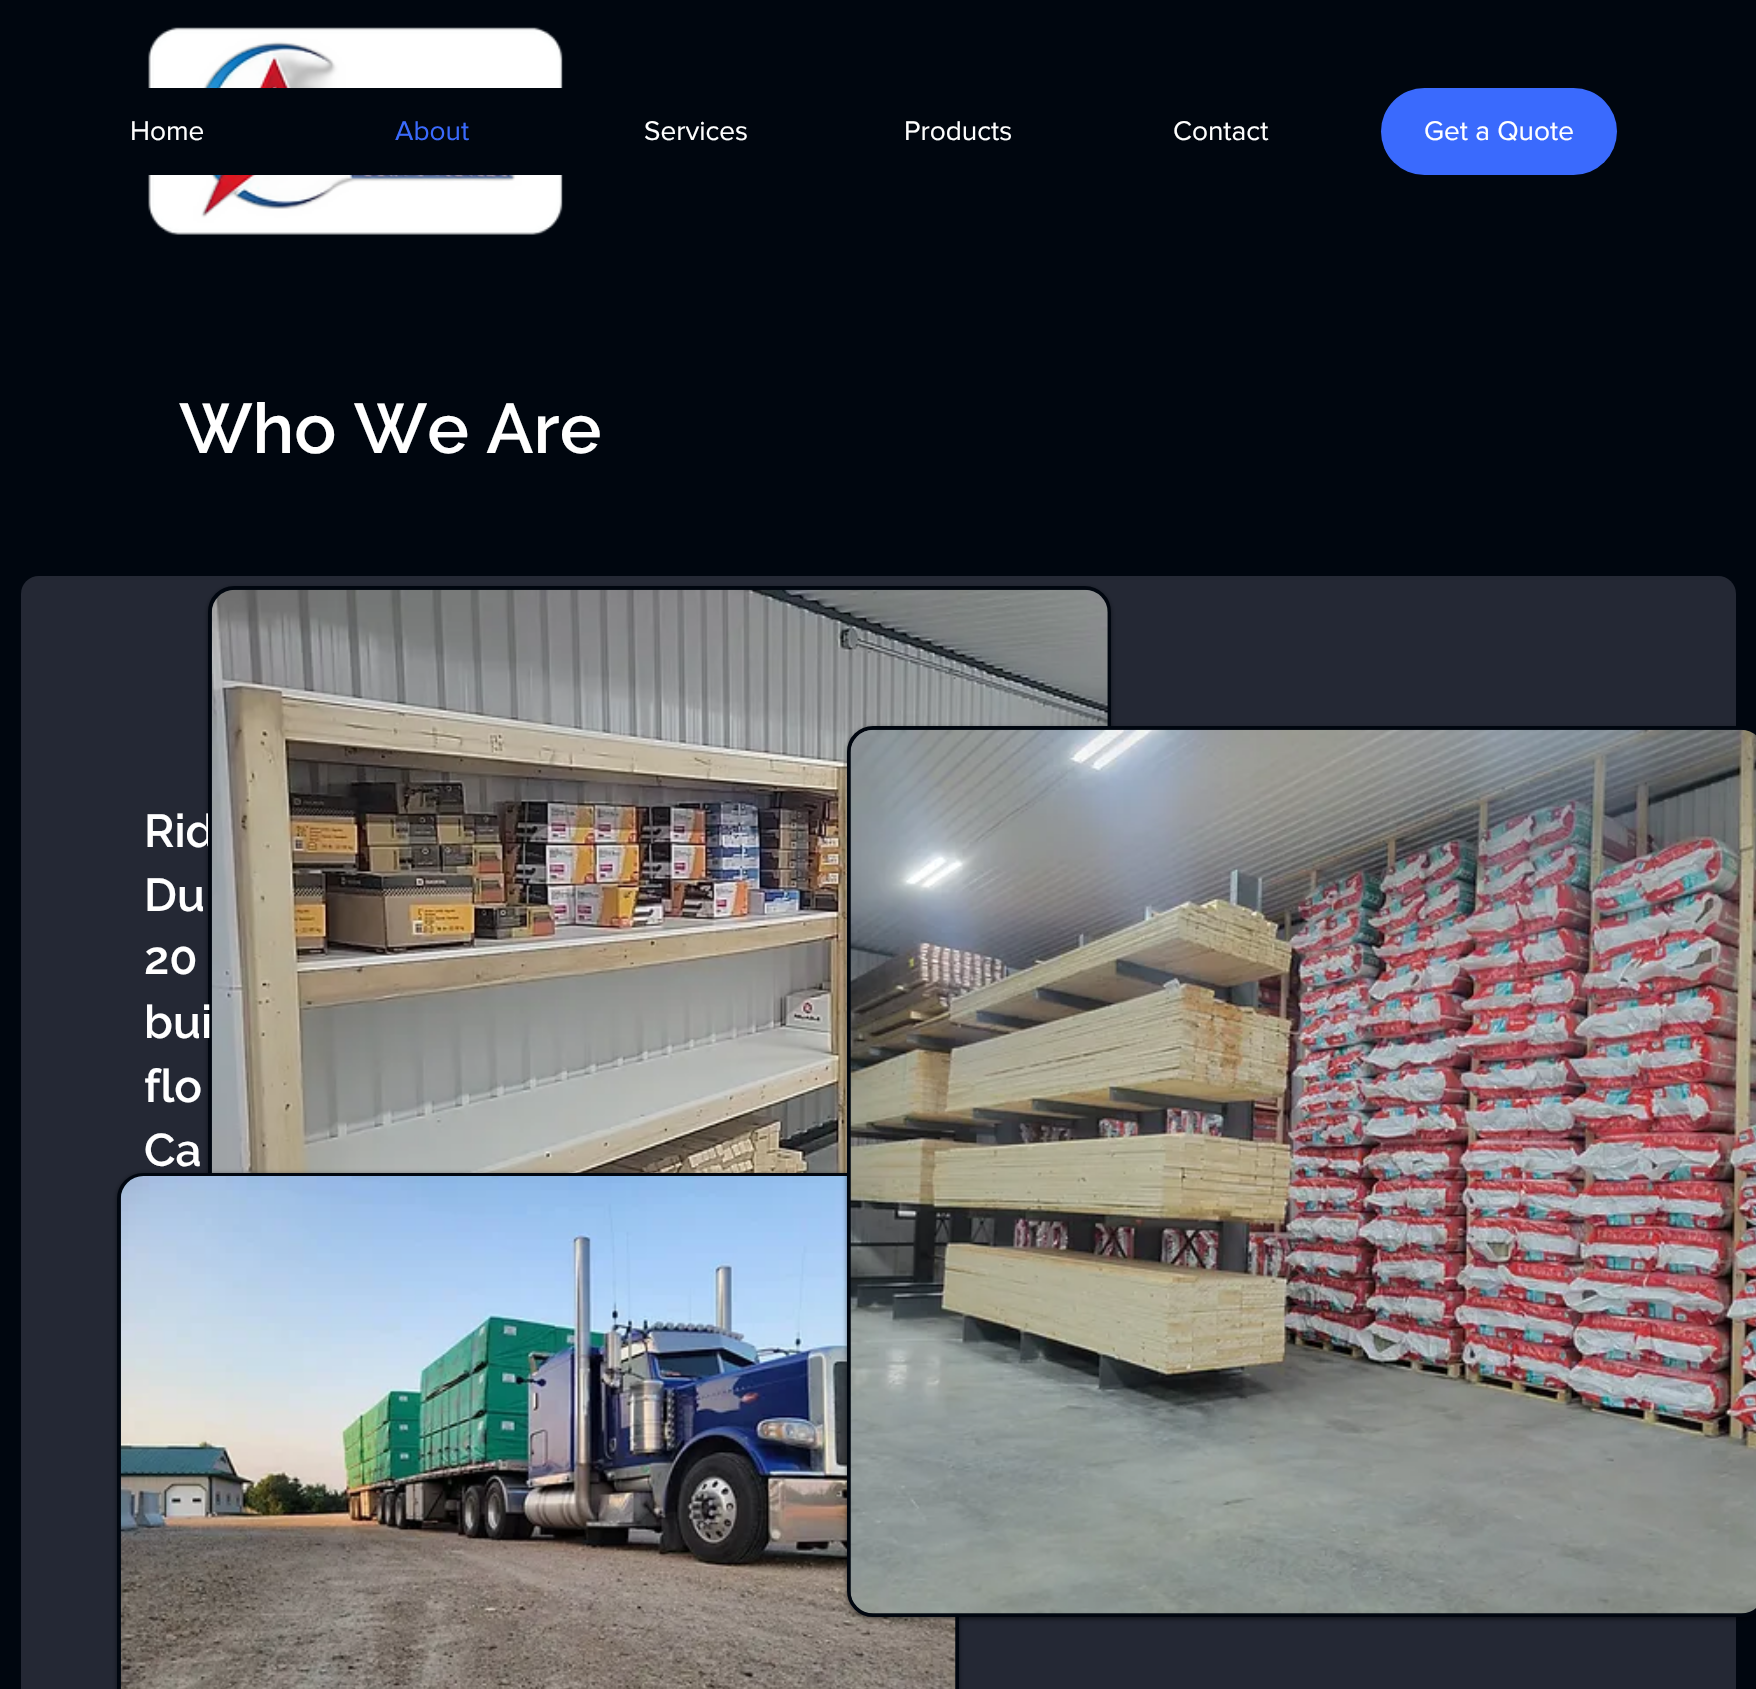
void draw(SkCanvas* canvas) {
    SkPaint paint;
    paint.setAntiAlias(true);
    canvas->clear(0xFF00060F);
    canvas->drawImageRect(SkImages::DeferredFromEncodedData(SkData::MakeFromFileName("img1.png")), SkRect::MakeXYWH(148, 27, 415, 208), SkSamplingOptions());
    paint.setColor(0xFF00060F);
    canvas->drawRoundRect(SkRect::MakeXYWH(35, 88, 1316, 87), 43.5f, 43.5f, paint);
    SkFont font1(fontMgr->matchFamilyStyle("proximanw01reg", SkFontStyle::Normal()), 28);
    font1.setSubpixel(true);
    paint.setColor(0xFFFFFFFF);
    canvas->drawString("Home", 130, 140, font1, paint);
    paint.setColor(0xFF3A6AFD);
    canvas->drawString("About", 395, 140, font1, paint);
    paint.setColor(0xFFFFFFFF);
    canvas->drawString("Services", 644, 140, font1, paint);
    canvas->drawString("Products", 904, 140, font1, paint);
    canvas->drawString("Contact", 1173, 140, font1, paint);
    paint.setColor(0xFF3A6AFD);
    canvas->drawRoundRect(SkRect::MakeXYWH(1381, 88, 236, 87), 43.5f, 43.5f, paint);
    paint.setColor(0xFFFFFFFF);
    canvas->drawString("Get a Quote", 1424, 140, font1, paint);
    SkFont font2(fontMgr->matchFamilyStyle("Raleway", SkFontStyle(600, SkFontStyle::kNormal_Width, SkFontStyle::kUpright_Slant)), 70);
    font2.setSubpixel(true);
    canvas->drawString("Who We Are", 179, 453, font2, paint);
    paint.setColor(0xFF242834);
    canvas->drawRoundRect(SkRect::MakeXYWH(21, 576, 1715, 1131), 18, 18, paint);
    paint.setColor(0x80000000);
    paint.setMaskFilter(SkMaskFilter::MakeBlur(kNormal_SkBlurStyle, 2.5f));
    canvas->drawRoundRect(SkRect::MakeXYWH(208, 588, 903, 788), 26, 26, paint);
    paint.setMaskFilter(nullptr);
    SkFont font3(fontMgr->matchFamilyStyle("Raleway", SkFontStyle(600, SkFontStyle::kNormal_Width, SkFontStyle::kUpright_Slant)), 46);
    font3.setSubpixel(true);
    paint.setColor(0xFFFFFFFF);
    canvas->drawString("Rid", 144, 847, font3, paint);
    paint.setColor(0xFF00060F);
    canvas->drawRoundRect(SkRect::MakeXYWH(210, 588, 899, 784), 24, 24, paint);
    paint.setStyle(SkPaint::kStroke_Style);
    paint.setStrokeWidth(4);
    canvas->drawRoundRect(SkRect::MakeXYWH(210, 588, 899, 784), 24, 24, paint);
    canvas->drawImageRect(SkImages::DeferredFromEncodedData(SkData::MakeFromFileName("img2.png")), SkRect::MakeXYWH(211, 589, 897, 584), SkSamplingOptions());
    paint.setStyle(SkPaint::kFill_Style);
    paint.setColor(0x80000000);
    paint.setMaskFilter(SkMaskFilter::MakeBlur(kNormal_SkBlurStyle, 2.5f));
    canvas->drawRoundRect(SkRect::MakeXYWH(117, 1174, 842, 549), 26, 26, paint);
    paint.setMaskFilter(nullptr);
    paint.setStyle(SkPaint::kStroke_Style);
    paint.setColor(0xFF00060F);
    canvas->drawRoundRect(SkRect::MakeXYWH(119, 1175, 838, 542), 24, 24, paint);
    canvas->drawImageRect(SkImages::DeferredFromEncodedData(SkData::MakeFromFileName("img4.png")), SkRect::MakeXYWH(120, 1176, 836, 513), SkSamplingOptions());
    paint.setStyle(SkPaint::kFill_Style);
    paint.setColor(0x80000000);
    paint.setMaskFilter(SkMaskFilter::MakeBlur(kNormal_SkBlurStyle, 2.5f));
    canvas->drawRoundRect(SkRect::MakeXYWH(847, 728, 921, 891), 26, 26, paint);
    paint.setMaskFilter(nullptr);
    paint.setStyle(SkPaint::kStroke_Style);
    paint.setColor(0xFF00060F);
    canvas->drawRoundRect(SkRect::MakeXYWH(849, 728, 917, 887), 24, 24, paint);
    canvas->drawImageRect(SkImages::DeferredFromEncodedData(SkData::MakeFromFileName("img3.png")), SkRect::MakeXYWH(850, 729, 906, 885), SkSamplingOptions());
    paint.setStyle(SkPaint::kFill_Style);
    paint.setColor(0xFFFFFFFF);
    canvas->drawString("Du", 144, 911, font3, paint);
    canvas->drawString("20", 144, 974, font3, paint);
    canvas->drawString("bui", 144, 1038, font3, paint);
    canvas->drawString("flo", 144, 1102, font3, paint);
    canvas->drawString("Ca", 144, 1166, font3, paint);
}
